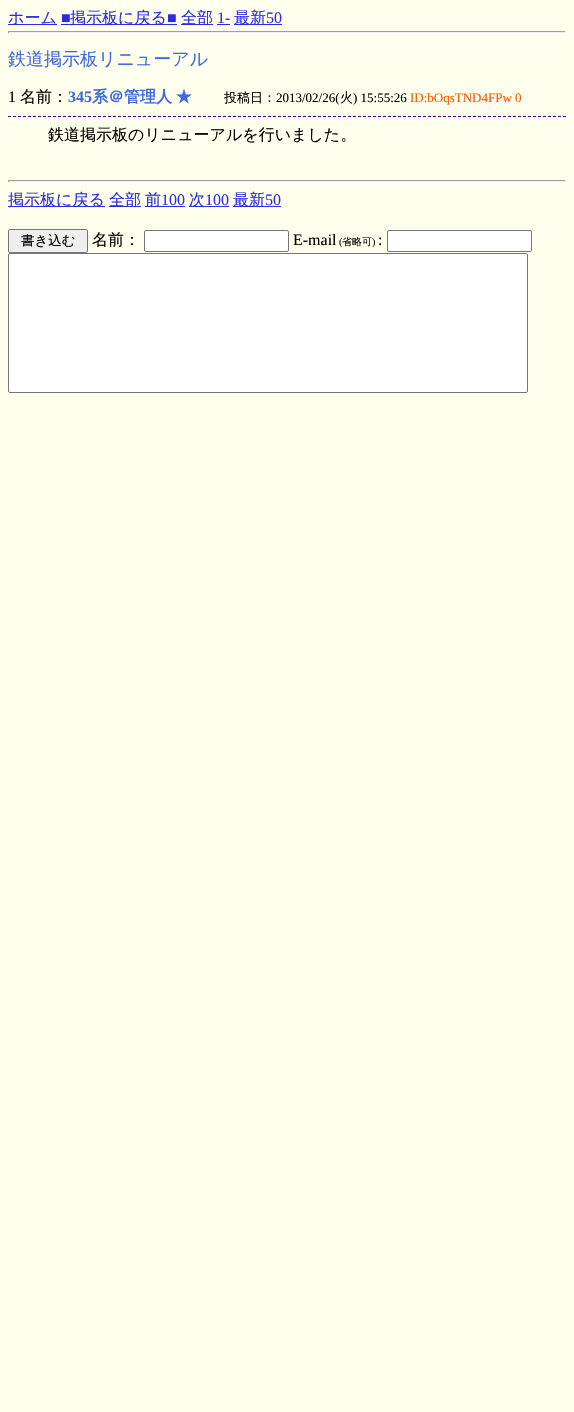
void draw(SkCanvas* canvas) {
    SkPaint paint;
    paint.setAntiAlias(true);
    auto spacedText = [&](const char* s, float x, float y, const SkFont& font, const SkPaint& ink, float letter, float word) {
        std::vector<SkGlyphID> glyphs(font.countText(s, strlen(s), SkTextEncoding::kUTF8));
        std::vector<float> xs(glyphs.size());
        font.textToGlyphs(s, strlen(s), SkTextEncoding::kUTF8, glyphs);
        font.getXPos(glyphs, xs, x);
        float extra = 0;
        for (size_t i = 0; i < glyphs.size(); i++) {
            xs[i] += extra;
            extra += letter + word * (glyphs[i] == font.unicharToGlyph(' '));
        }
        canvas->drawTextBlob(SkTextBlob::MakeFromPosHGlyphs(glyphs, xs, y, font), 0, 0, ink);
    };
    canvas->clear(0xFFFFFFEE);
    paint.setColor(0xFF2C2CE0);
    canvas->drawRect(SkRect::MakeXYWH(8, 24, 49, 1), paint);
    SkFont font1(fontMgr->matchFamilyStyle("WenQuanYi Zen Hei", SkFontStyle(500, SkFontStyle::kNormal_Width, SkFontStyle::kUpright_Slant)), 16);
    font1.setSubpixel(true);
    canvas->drawString("ホーム", 8, 23, font1, paint);
    SkFont font2(fontMgr->matchFamilyStyle("Liberation Serif", SkFontStyle::Normal()), 16);
    font2.setSubpixel(true);
    canvas->drawString("■", 61, 23, font2, paint);
    canvas->drawRect(SkRect::MakeXYWH(61, 24, 116, 1), paint);
    canvas->drawString("掲示板に戻る", 70, 23, font1, paint);
    canvas->drawString("■", 167, 23, font2, paint);
    canvas->drawRect(SkRect::MakeXYWH(181, 24, 32, 1), paint);
    canvas->drawString("全部", 181, 23, font1, paint);
    canvas->drawString("1-", 217, 23, font2, paint);
    canvas->drawRect(SkRect::MakeXYWH(217, 24, 13, 1), paint);
    canvas->drawRect(SkRect::MakeXYWH(234, 24, 48, 1), paint);
    canvas->drawString("最新", 234, 23, font1, paint);
    canvas->drawString("50", 266, 23, font2, paint);
    paint.setColor(0xFF9F9F9F);
    canvas->drawRect(SkRect::MakeXYWH(8, 31, 558, 1), paint);
    paint.setColor(0xFFEEEEEE);
    canvas->drawRect(SkRect::MakeXYWH(565, 31, 1, 2), paint);
    canvas->drawRect(SkRect::MakeXYWH(8, 32, 558, 1), paint);
    paint.setColor(0xFF9F9F9F);
    canvas->drawRect(SkRect::MakeXYWH(8, 31, 1, 2), paint);
    SkFont font3(fontMgr->matchFamilyStyle("WenQuanYi Zen Hei", SkFontStyle(500, SkFontStyle::kNormal_Width, SkFontStyle::kUpright_Slant)), 18);
    font3.setSubpixel(true);
    paint.setColor(0xFF4169E1);
    canvas->drawString("鉄道掲示板リニューアル", 8, 65, font3, paint);
    paint.setColor(0xFF000000);
    canvas->drawString("1", 8, 102, font2, paint);
    canvas->drawString("名前：", 20, 102, font1, paint);
    SkFont font4(fontMgr->matchFamilyStyle("Liberation Serif", SkFontStyle::Bold()), 16);
    font4.setSubpixel(true);
    paint.setColor(0xFF4169E1);
    canvas->drawString("345", 68, 102, font4, paint);
    SkFont font5(fontMgr->matchFamilyStyle("WenQuanYi Zen Hei", SkFontStyle::Bold()), 16);
    font5.setSubpixel(true);
    canvas->drawString("系", 92, 102, font5, paint);
    spacedText("＠管理人 ★", 108, 102, font5, paint, 0, -1);
    SkFont font6(fontMgr->matchFamilyStyle("WenQuanYi Zen Hei", SkFontStyle(500, SkFontStyle::kNormal_Width, SkFontStyle::kUpright_Slant)), 13);
    font6.setSubpixel(true);
    paint.setColor(0xFF000000);
    canvas->drawString("投稿日：", 224, 102, font6, paint);
    SkFont font7(fontMgr->matchFamilyStyle("Liberation Serif", SkFontStyle::Normal()), 13);
    font7.setSubpixel(true);
    canvas->drawString("2013/02/26(", 276, 102, font7, paint);
    canvas->drawString("火", 340, 102, font6, paint);
    canvas->drawString(") 15:55:26", 353, 102, font7, paint);
    paint.setColor(0xFFFF5500);
    canvas->drawString("ID:bOqsTND4FPw 0", 410, 102, font7, paint);
    paint.setStyle(SkPaint::kStroke_Style);
    paint.setStrokeWidth(1);
    paint.setColor(0xFF4B0082);
    paint.setPathEffect(SkDashPathEffect::Make({{3, 2}}, 0));
    canvas->drawPath(SkPathBuilder().moveTo(8, 116.5f).lineTo(566, 116.5f).detach(), paint);
    paint.setPathEffect(nullptr);
    paint.setStyle(SkPaint::kFill_Style);
    paint.setColor(0xFF000000);
    canvas->drawString("鉄道掲示板のリニューアルを行いました。", 48, 140, font1, paint);
    paint.setColor(0xFF9F9F9F);
    canvas->drawRect(SkRect::MakeXYWH(8, 180, 558, 1), paint);
    paint.setColor(0xFFEEEEEE);
    canvas->drawRect(SkRect::MakeXYWH(565, 180, 1, 2), paint);
    canvas->drawRect(SkRect::MakeXYWH(8, 181, 558, 1), paint);
    paint.setColor(0xFF9F9F9F);
    canvas->drawRect(SkRect::MakeXYWH(8, 180, 1, 2), paint);
    paint.setColor(0xFF2C2CE0);
    canvas->drawRect(SkRect::MakeXYWH(8, 206, 97, 1), paint);
    canvas->drawString("掲示板に戻る", 8, 205, font1, paint);
    canvas->drawRect(SkRect::MakeXYWH(109, 206, 32, 1), paint);
    canvas->drawString("全部", 109, 205, font1, paint);
    canvas->drawRect(SkRect::MakeXYWH(145, 206, 40, 1), paint);
    canvas->drawString("前", 145, 205, font1, paint);
    canvas->drawString("100", 161, 205, font2, paint);
    canvas->drawRect(SkRect::MakeXYWH(189, 206, 40, 1), paint);
    canvas->drawString("次", 189, 205, font1, paint);
    canvas->drawString("100", 205, 205, font2, paint);
    canvas->drawRect(SkRect::MakeXYWH(233, 206, 48, 1), paint);
    canvas->drawString("最新", 233, 205, font1, paint);
    canvas->drawString("50", 265, 205, font2, paint);
    paint.setColor(0xFFEFEFEF);
    canvas->drawRoundRect(SkRect::MakeXYWH(8.5f, 229.5f, 79, 23), 1.5f, 1.5f, paint);
    paint.setStyle(SkPaint::kStroke_Style);
    paint.setColor(0xFF767676);
    canvas->drawRoundRect(SkRect::MakeXYWH(8.5f, 229.5f, 79, 23), 1.5f, 1.5f, paint);
    SkFont font8(fontMgr->matchFamilyStyle("WenQuanYi Zen Hei", SkFontStyle(500, SkFontStyle::kNormal_Width, SkFontStyle::kUpright_Slant)), 13.5f);
    font8.setSubpixel(true);
    paint.setStyle(SkPaint::kFill_Style);
    paint.setColor(0xFF000000);
    canvas->drawString("書き込む", 21, 245, font8, paint);
    canvas->drawString("名前：", 92, 245, font1, paint);
    paint.setColor(0xFFFFFFFF);
    canvas->drawRoundRect(SkRect::MakeXYWH(144.5f, 230.5f, 144, 21), 1.5f, 1.5f, paint);
    paint.setStyle(SkPaint::kStroke_Style);
    paint.setColor(0xFF767676);
    canvas->drawRoundRect(SkRect::MakeXYWH(144.5f, 230.5f, 144, 21), 1.5f, 1.5f, paint);
    paint.setStyle(SkPaint::kFill_Style);
    paint.setColor(0xFF000000);
    canvas->drawString("E-mail", 293, 245, font2, paint);
    SkFont font9(fontMgr->matchFamilyStyle("Liberation Serif", SkFontStyle::Normal()), 10);
    font9.setSubpixel(true);
    canvas->drawString("(", 339, 245, font9, paint);
    SkFont font10(fontMgr->matchFamilyStyle("WenQuanYi Zen Hei", SkFontStyle(500, SkFontStyle::kNormal_Width, SkFontStyle::kUpright_Slant)), 10);
    font10.setSubpixel(true);
    canvas->drawString("省略可", 342, 245, font10, paint);
    canvas->drawString(")", 372, 245, font9, paint);
    canvas->drawString(":", 378, 245, font2, paint);
    paint.setColor(0xFFFFFFFF);
    canvas->drawRoundRect(SkRect::MakeXYWH(387.5f, 230.5f, 144, 21), 1.5f, 1.5f, paint);
    paint.setStyle(SkPaint::kStroke_Style);
    paint.setColor(0xFF767676);
    canvas->drawRoundRect(SkRect::MakeXYWH(387.5f, 230.5f, 144, 21), 1.5f, 1.5f, paint);
    paint.setStyle(SkPaint::kFill_Style);
    paint.setColor(0xFFFFFFFF);
    canvas->drawRoundRect(SkRect::MakeXYWH(8.5f, 253.5f, 519, 139), 1.5f, 1.5f, paint);
    paint.setStyle(SkPaint::kStroke_Style);
    paint.setColor(0xFF767676);
    canvas->drawRoundRect(SkRect::MakeXYWH(8.5f, 253.5f, 519, 139), 1.5f, 1.5f, paint);
}
